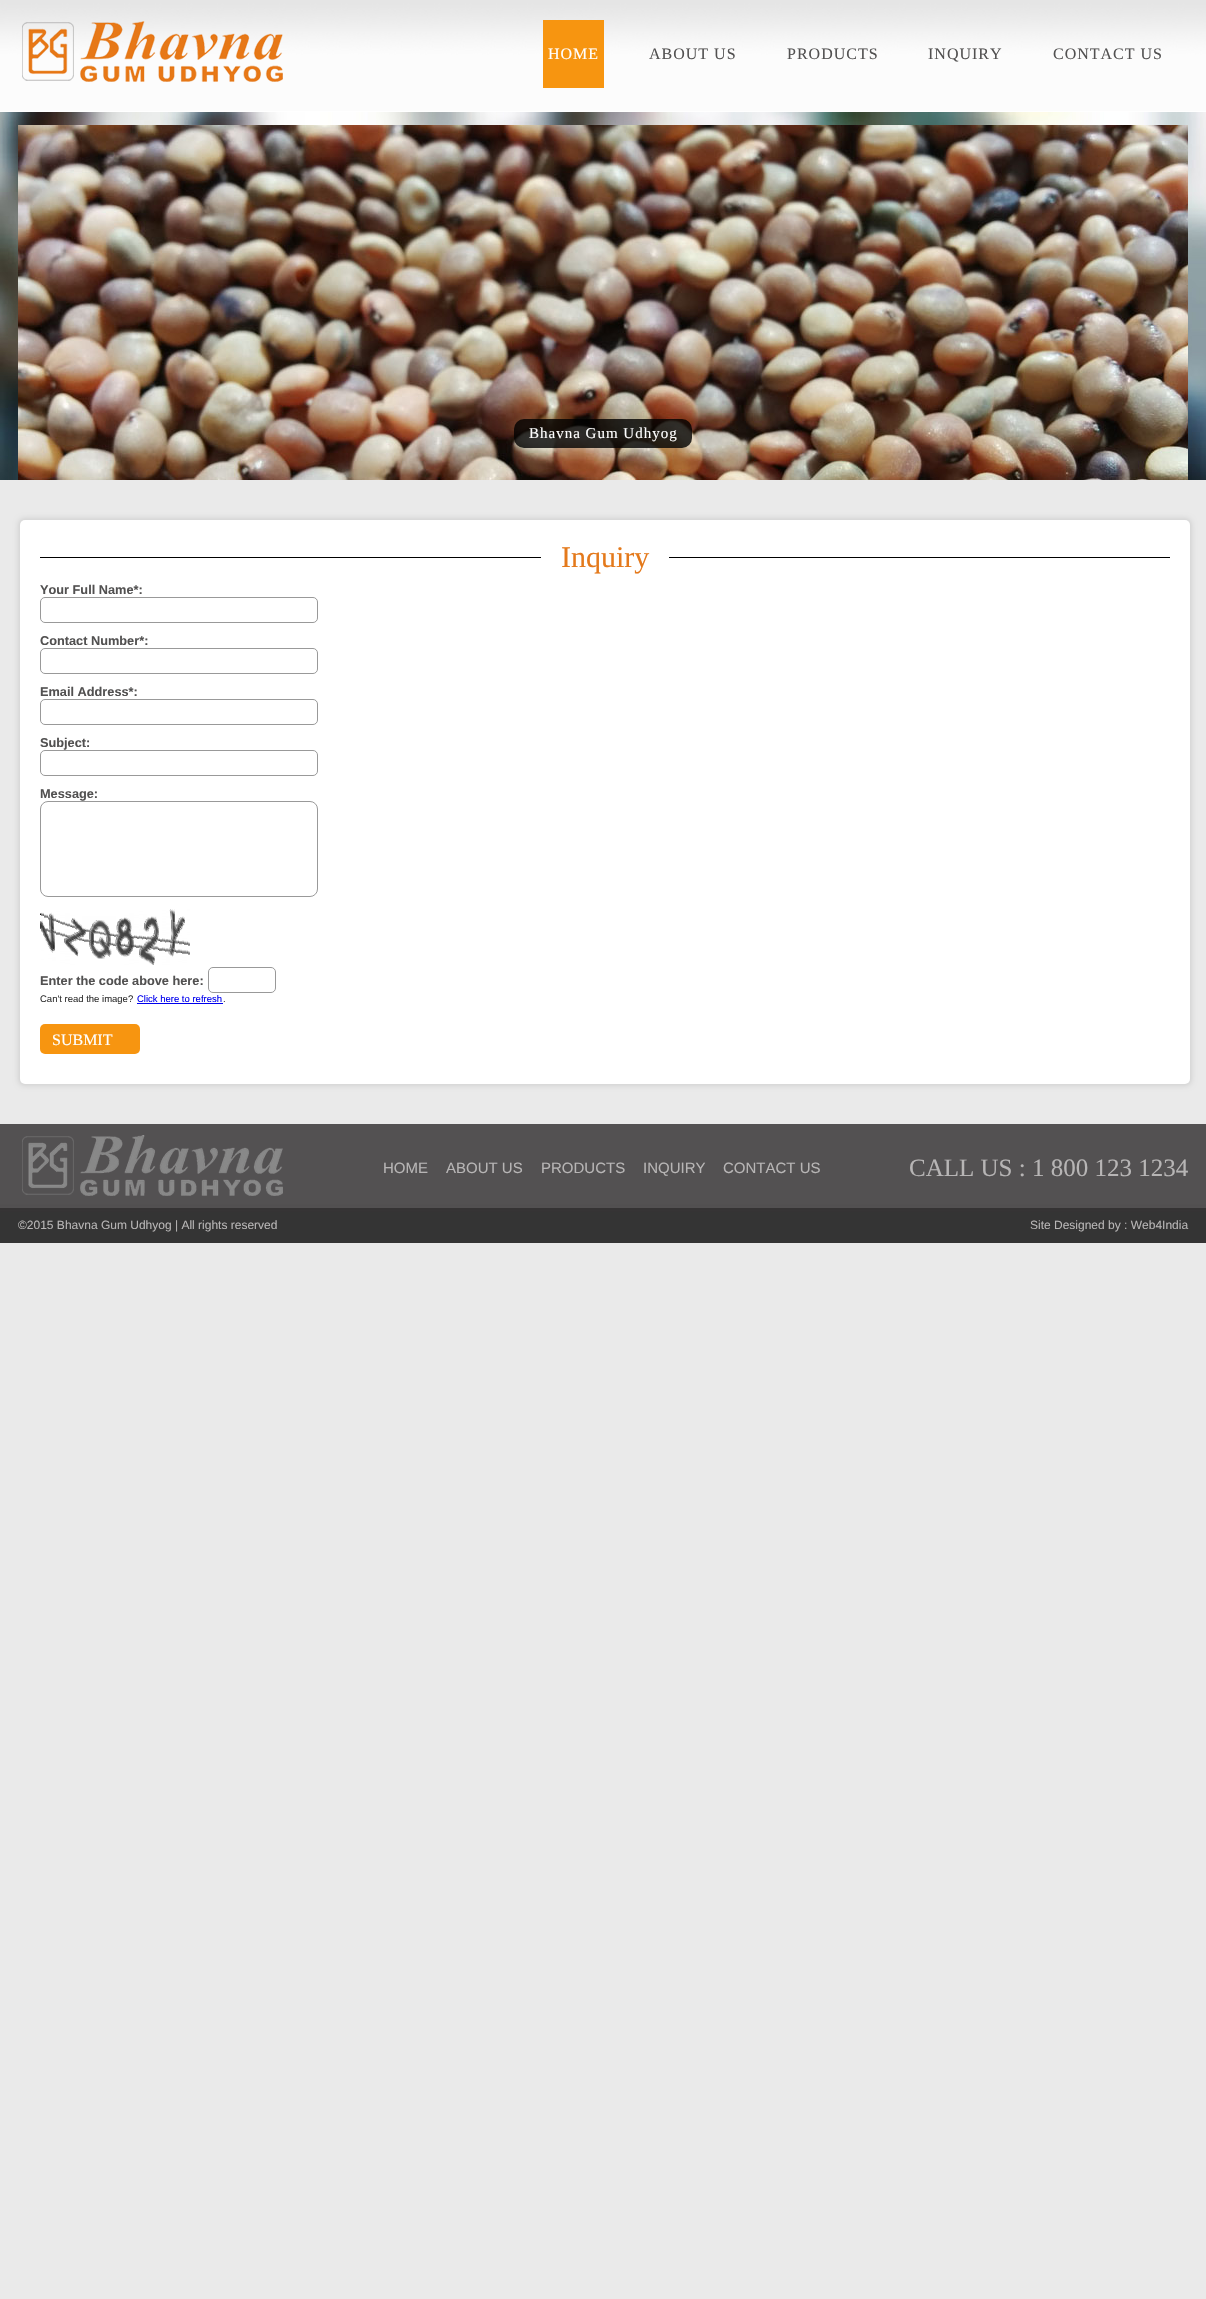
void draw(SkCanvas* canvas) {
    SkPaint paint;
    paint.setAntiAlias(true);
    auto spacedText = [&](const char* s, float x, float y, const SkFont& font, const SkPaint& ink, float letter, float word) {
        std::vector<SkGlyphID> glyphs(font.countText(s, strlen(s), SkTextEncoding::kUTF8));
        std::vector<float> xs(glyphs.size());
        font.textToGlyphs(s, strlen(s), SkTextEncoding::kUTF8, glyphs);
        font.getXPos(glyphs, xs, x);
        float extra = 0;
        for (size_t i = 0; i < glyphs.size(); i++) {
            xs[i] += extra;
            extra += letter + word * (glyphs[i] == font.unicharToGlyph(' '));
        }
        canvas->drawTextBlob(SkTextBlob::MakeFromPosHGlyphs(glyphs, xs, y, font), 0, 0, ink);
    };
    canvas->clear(0xFFEAEAEA);
    canvas->drawImageRect(SkImages::DeferredFromEncodedData(SkData::MakeFromFileName("img1.png")), SkRect::MakeXYWH(0, 0, 1206, 112), SkSamplingOptions());
    canvas->drawImageRect(SkImages::DeferredFromEncodedData(SkData::MakeFromFileName("img2.png")), SkRect::MakeXYWH(22, 21, 261, 61), SkSamplingOptions());
    paint.setColor(0xFFF79510);
    canvas->drawRect(SkRect::MakeXYWH(543, 20, 61, 68), paint);
    SkFont font1(fontMgr->matchFamilyStyle("Liberation Serif", SkFontStyle::Normal()), 16);
    font1.setSubpixel(true);
    paint.setColor(0xFFFFFFFF);
    spacedText("HOME", 548, 59, font1, paint, 1, 0);
    paint.setColor(0xFF525151);
    spacedText("ABOUT US", 649, 59, font1, paint, 1, 0);
    spacedText("PRODUCTS", 787, 59, font1, paint, 1, 0);
    spacedText("INQUIRY", 928, 59, font1, paint, 1, 0);
    spacedText("CONTACT US", 1053, 59, font1, paint, 1, 0);
    canvas->drawImageRect(SkImages::DeferredFromEncodedData(SkData::MakeFromFileName("img3.png")), SkRect::MakeXYWH(0, 112, 1206, 368), SkSamplingOptions());
    canvas->drawImageRect(SkImages::DeferredFromEncodedData(SkData::MakeFromFileName("img4.png")), SkRect::MakeXYWH(18, 125, 1170, 355), SkSamplingOptions());
    paint.setColor(0xCC000000);
    canvas->drawRoundRect(SkRect::MakeXYWH(514, 419, 178, 29), 10, 10, paint);
    SkFont font2(fontMgr->matchFamilyStyle("Liberation Serif", SkFontStyle::Normal()), 15);
    font2.setSubpixel(true);
    paint.setColor(0xFFFFFFFF);
    spacedText("Bhavna Gum Udhyog", 529, 438, font2, paint, 1, 0);
    paint.setColor(0x1A000000);
    paint.setMaskFilter(SkMaskFilter::MakeBlur(kNormal_SkBlurStyle, 2.5f));
    canvas->drawRoundRect(SkRect::MakeXYWH(18, 518, 1174, 568), 7, 7, paint);
    paint.setMaskFilter(nullptr);
    paint.setColor(0xFFFFFFFF);
    canvas->drawRoundRect(SkRect::MakeXYWH(20, 520, 1170, 564), 5, 5, paint);
    paint.setColor(0xFF000000);
    canvas->drawRect(SkRect::MakeXYWH(40, 557, 1130, 1), paint);
    paint.setColor(0xFFFFFFFF);
    canvas->drawRect(SkRect::MakeXYWH(541, 557, 128, 1), paint);
    SkFont font3(fontMgr->matchFamilyStyle("Liberation Serif", SkFontStyle::Normal()), 30);
    font3.setSubpixel(true);
    paint.setColor(0xFFE4791B);
    canvas->drawString("Inquiry", 561, 567, font3, paint);
    SkFont font4(fontMgr->matchFamilyStyle("Liberation Sans", SkFontStyle::Bold()), 12.75f);
    font4.setSubpixel(true);
    paint.setColor(0xFF525151);
    canvas->drawString("Your Full Name*:", 40, 594, font4, paint);
    paint.setStyle(SkPaint::kStroke_Style);
    paint.setStrokeWidth(1);
    paint.setColor(0xFF999999);
    canvas->drawRoundRect(SkRect::MakeXYWH(40.5f, 597.5f, 277, 25), 4.5f, 4.5f, paint);
    paint.setStyle(SkPaint::kFill_Style);
    paint.setColor(0xFF525151);
    canvas->drawString("Contact Number*:", 40, 645, font4, paint);
    paint.setStyle(SkPaint::kStroke_Style);
    paint.setColor(0xFF999999);
    canvas->drawRoundRect(SkRect::MakeXYWH(40.5f, 648.5f, 277, 25), 4.5f, 4.5f, paint);
    paint.setStyle(SkPaint::kFill_Style);
    paint.setColor(0xFF525151);
    canvas->drawString("Email Address*:", 40, 696, font4, paint);
    paint.setStyle(SkPaint::kStroke_Style);
    paint.setColor(0xFF999999);
    canvas->drawRoundRect(SkRect::MakeXYWH(40.5f, 699.5f, 277, 25), 4.5f, 4.5f, paint);
    paint.setStyle(SkPaint::kFill_Style);
    paint.setColor(0xFF525151);
    canvas->drawString("Subject:", 40, 747, font4, paint);
    paint.setStyle(SkPaint::kStroke_Style);
    paint.setColor(0xFF999999);
    canvas->drawRoundRect(SkRect::MakeXYWH(40.5f, 750.5f, 277, 25), 4.5f, 4.5f, paint);
    paint.setStyle(SkPaint::kFill_Style);
    paint.setColor(0xFF525151);
    canvas->drawString("Message:", 40, 798, font4, paint);
    paint.setStyle(SkPaint::kStroke_Style);
    paint.setColor(0xFF999999);
    canvas->drawRoundRect(SkRect::MakeXYWH(40.5f, 801.5f, 277, 95), 7.5f, 7.5f, paint);
    canvas->drawImageRect(SkImages::DeferredFromEncodedData(SkData::MakeFromFileName("img5.png")), SkRect::MakeXYWH(40, 909, 150, 56), SkSamplingOptions());
    paint.setStyle(SkPaint::kFill_Style);
    paint.setColor(0xFF525151);
    canvas->drawString("Enter the code above here:", 40, 985, font4, paint);
    paint.setStyle(SkPaint::kStroke_Style);
    paint.setColor(0xFF999999);
    canvas->drawRoundRect(SkRect::MakeXYWH(208.5f, 967.5f, 67, 25), 4.5f, 4.5f, paint);
    SkFont font5(fontMgr->matchFamilyStyle("Liberation Sans", SkFontStyle::Normal()), 9.5f);
    font5.setSubpixel(true);
    paint.setStyle(SkPaint::kFill_Style);
    paint.setColor(0xFF333333);
    canvas->drawString("Can't read the image?", 40, 1002, font5, paint);
    paint.setColor(0xFF0000EE);
    canvas->drawString("Click here to refresh", 137, 1002, font5, paint);
    canvas->drawRect(SkRect::MakeXYWH(137, 1003, 86, 1), paint);
    paint.setColor(0xFF333333);
    canvas->drawString(".", 223, 1002, font5, paint);
    paint.setColor(0xFFF79510);
    canvas->drawRoundRect(SkRect::MakeXYWH(40, 1024, 100, 30), 5, 5, paint);
    paint.setColor(0xFFFFFFFF);
    canvas->drawString("SUBMIT", 52, 1045, font1, paint);
    canvas->drawImageRect(SkImages::DeferredFromEncodedData(SkData::MakeFromFileName("img6.png")), SkRect::MakeXYWH(0, 1124, 1206, 119), SkSamplingOptions());
    canvas->drawImageRect(SkImages::DeferredFromEncodedData(SkData::MakeFromFileName("img7.png")), SkRect::MakeXYWH(22, 1135, 261, 61), SkSamplingOptions());
    SkFont font6(fontMgr->matchFamilyStyle("Liberation Sans", SkFontStyle::Normal()), 15);
    font6.setSubpixel(true);
    paint.setColor(0xFFB7B5B5);
    canvas->drawString("HOME", 383, 1173, font6, paint);
    canvas->drawString("ABOUT US", 446, 1173, font6, paint);
    canvas->drawString("PRODUCTS", 541, 1173, font6, paint);
    canvas->drawString("INQUIRY", 643, 1173, font6, paint);
    canvas->drawString("CONTACT US", 723, 1173, font6, paint);
    SkFont font7(fontMgr->matchFamilyStyle("Liberation Serif", SkFontStyle::Normal()), 25);
    font7.setSubpixel(true);
    canvas->drawString("CALL US : 1 800 123 1234", 909, 1176, font7, paint);
    SkFont font8(fontMgr->matchFamilyStyle("Liberation Sans", SkFontStyle::Normal()), 12);
    font8.setSubpixel(true);
    canvas->drawString("©2015 Bhavna Gum Udhyog | All rights reserved", 18, 1229, font8, paint);
    canvas->drawString("Site Designed by : Web4India", 1030, 1229, font8, paint);
}
